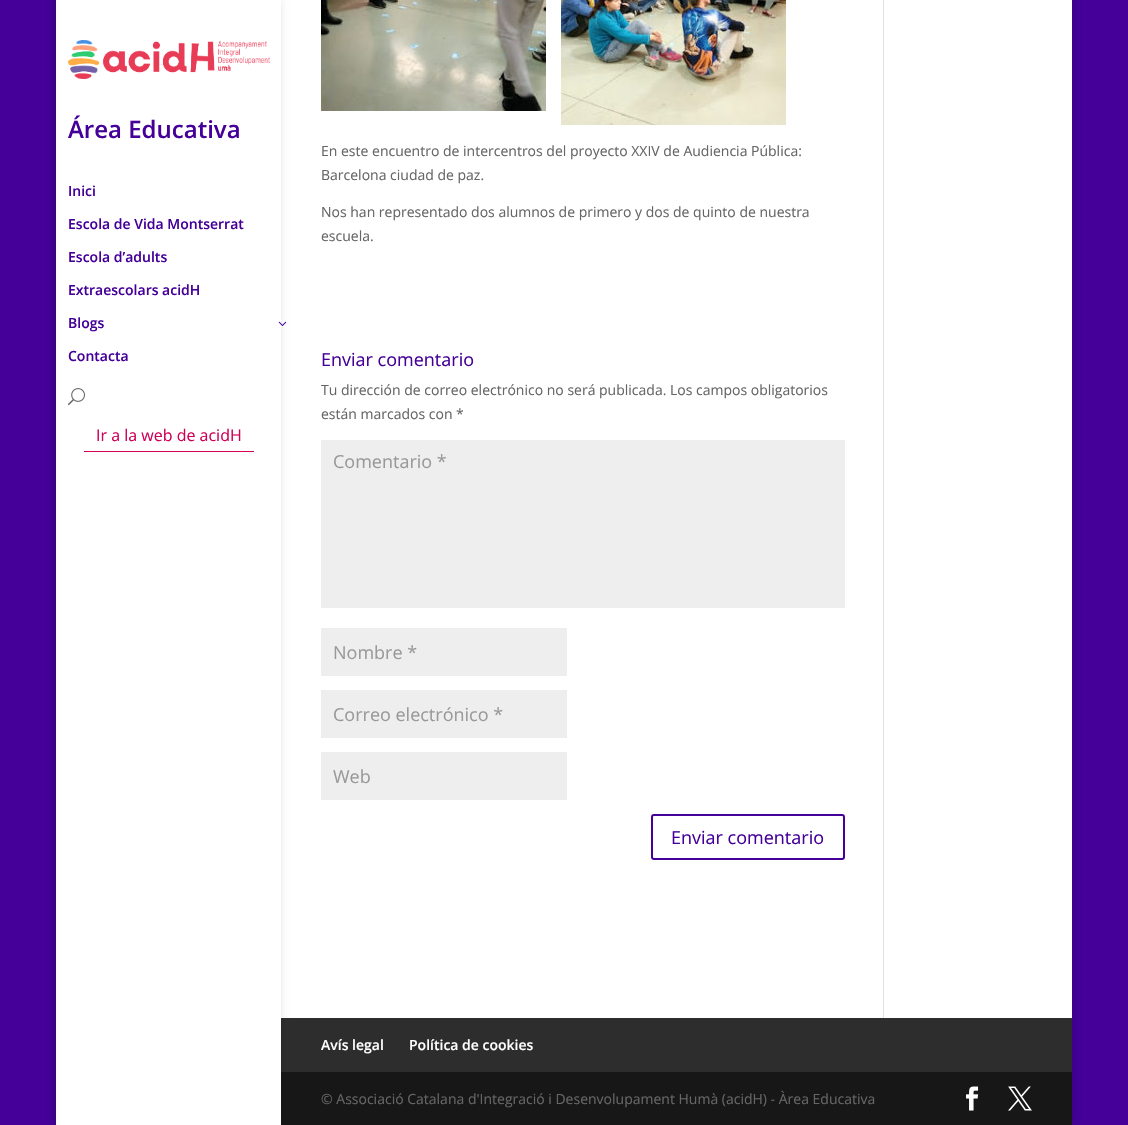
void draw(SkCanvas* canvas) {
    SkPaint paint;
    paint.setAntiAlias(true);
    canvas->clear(0xFF440099);
    paint.setColor(0x33000000);
    paint.setMaskFilter(SkMaskFilter::MakeBlur(kNormal_SkBlurStyle, 5));
    canvas->drawRect(SkRect::MakeXYWH(56, -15, 1016, 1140), paint);
    paint.setMaskFilter(nullptr);
    paint.setColor(0xFFFFFFFF);
    canvas->drawRect(SkRect::MakeXYWH(281, 0, 791, 1018), paint);
    paint.setColor(0xFF2D2D2D);
    canvas->drawRect(SkRect::MakeXYWH(281, 1018, 791, 54), paint);
    paint.setColor(0xFF171717);
    canvas->drawRect(SkRect::MakeXYWH(281, 1072, 791, 53), paint);
    paint.setColor(0x1A000000);
    paint.setMaskFilter(SkMaskFilter::MakeBlur(kNormal_SkBlurStyle, 3.5f));
    canvas->drawRect(SkRect::MakeXYWH(56, 0, 225, 1125), paint);
    paint.setMaskFilter(nullptr);
    paint.setColor(0xFFFFFFFF);
    canvas->drawRect(SkRect::MakeXYWH(56, 0, 225, 1125), paint);
    canvas->drawImageRect(SkImages::DeferredFromEncodedData(SkData::MakeFromFileName("img1.png")), SkRect::MakeXYWH(68, 40, 202, 39), SkSamplingOptions());
    SkFont font1(fontMgr->matchFamilyStyle("Open Sans", SkFontStyle(600, SkFontStyle::kNormal_Width, SkFontStyle::kUpright_Slant)), 24);
    font1.setSubpixel(true);
    paint.setColor(0xFF440099);
    canvas->drawString("Área Educativa", 68, 138, font1, paint);
    SkFont font2(fontMgr->matchFamilyStyle("Open Sans", SkFontStyle(600, SkFontStyle::kNormal_Width, SkFontStyle::kUpright_Slant)), 14);
    font2.setSubpixel(true);
    canvas->drawString("Inici", 68, 196, font2, paint);
    canvas->drawString("Escola de Vida Montserrat", 68, 229, font2, paint);
    canvas->drawString("Escola d’adults", 68, 262, font2, paint);
    canvas->drawString("Extraescolars acidH", 68, 295, font2, paint);
    canvas->drawString("Blogs", 68, 328, font2, paint);
    canvas->drawImageRect(SkImages::DeferredFromEncodedData(SkData::MakeFromFileName("img2.png")), SkRect::MakeXYWH(278, 321, 9, 5), SkSamplingOptions());
    canvas->drawString("Contacta", 68, 361, font2, paint);
    canvas->drawImageRect(SkImages::DeferredFromEncodedData(SkData::MakeFromFileName("img3.png")), SkRect::MakeXYWH(68, 388, 17, 18), SkSamplingOptions());
    paint.setColor(0xFFD60057);
    canvas->drawRect(SkRect::MakeXYWH(84, 451, 170, 1), paint);
    SkFont font3(fontMgr->matchFamilyStyle("Open Sans", SkFontStyle::Normal()), 16);
    font3.setSubpixel(true);
    paint.setColor(0xFFCE0058);
    canvas->drawString("Ir a la web de acidH", 96, 441, font3, paint);
    canvas->drawImageRect(SkImages::DeferredFromEncodedData(SkData::MakeFromFileName("img4.png")), SkRect::MakeXYWH(321, 0, 225, 111), SkSamplingOptions());
    canvas->drawImageRect(SkImages::DeferredFromEncodedData(SkData::MakeFromFileName("img5.png")), SkRect::MakeXYWH(561, 0, 225, 125), SkSamplingOptions());
    SkFont font4(fontMgr->matchFamilyStyle("Open Sans", SkFontStyle::Normal()), 14);
    font4.setSubpixel(true);
    paint.setColor(0xFF666666);
    canvas->drawString("En este encuentro de intercentros del proyecto XXIV de Audiencia Pública:", 321, 156, font4, paint);
    canvas->drawString("Barcelona ciudad de paz.", 321, 180, font4, paint);
    canvas->drawString("Nos han representado dos alumnos de primero y dos de quinto de nuestra", 321, 217, font4, paint);
    canvas->drawString("escuela.", 321, 241, font4, paint);
    SkFont font5(fontMgr->matchFamilyStyle("Open Sans", SkFontStyle::Normal()), 18);
    font5.setSubpixel(true);
    paint.setColor(0xFF440099);
    canvas->drawString("Enviar comentario", 321, 366, font5, paint);
    paint.setColor(0xFF666666);
    canvas->drawString("Tu dirección de correo electrónico no será publicada. Los campos obligatorios", 321, 395, font4, paint);
    canvas->drawString("están marcados con *", 321, 419, font4, paint);
    paint.setColor(0xFFEEEEEE);
    canvas->drawRect(SkRect::MakeXYWH(321, 440, 524, 168), paint);
    paint.setColor(0xFF999999);
    canvas->drawString("Comentario *", 333, 468, font5, paint);
    paint.setColor(0xFFEEEEEE);
    canvas->drawRect(SkRect::MakeXYWH(321, 628, 246, 48), paint);
    paint.setColor(0xFF999999);
    canvas->drawString("Nombre *", 333, 659, font5, paint);
    paint.setColor(0xFFEEEEEE);
    canvas->drawRect(SkRect::MakeXYWH(321, 690, 246, 48), paint);
    paint.setColor(0xFF999999);
    canvas->drawString("Correo electrónico *", 333, 721, font5, paint);
    paint.setColor(0xFFEEEEEE);
    canvas->drawRect(SkRect::MakeXYWH(321, 752, 246, 48), paint);
    paint.setColor(0xFF999999);
    canvas->drawString("Web", 333, 783, font5, paint);
    paint.setStyle(SkPaint::kStroke_Style);
    paint.setStrokeWidth(2);
    paint.setColor(0xFF440099);
    canvas->drawRoundRect(SkRect::MakeXYWH(652, 815, 192, 44), 2, 2, paint);
    paint.setStyle(SkPaint::kFill_Style);
    canvas->drawString("Enviar comentario", 671, 844, font5, paint);
    paint.setColor(0xFFE2E2E2);
    canvas->drawRect(SkRect::MakeXYWH(883, 0, 1, 1018), paint);
    paint.setColor(0xFFFFFFFF);
    canvas->drawString("Avís legal", 321, 1050, font2, paint);
    canvas->drawString("Política de cookies", 409, 1050, font2, paint);
    paint.setColor(0xFF666666);
    canvas->drawString("© Associació Catalana d'Integració i Desenvolupament Humà (acidH) - Àrea Educativa", 321, 1104, font4, paint);
    canvas->drawImageRect(SkImages::DeferredFromEncodedData(SkData::MakeFromFileName("img6.png")), SkRect::MakeXYWH(966, 1086, 13, 25), SkSamplingOptions());
    canvas->drawImageRect(SkImages::DeferredFromEncodedData(SkData::MakeFromFileName("img7.png")), SkRect::MakeXYWH(1008, 1086, 24, 25), SkSamplingOptions());
}
